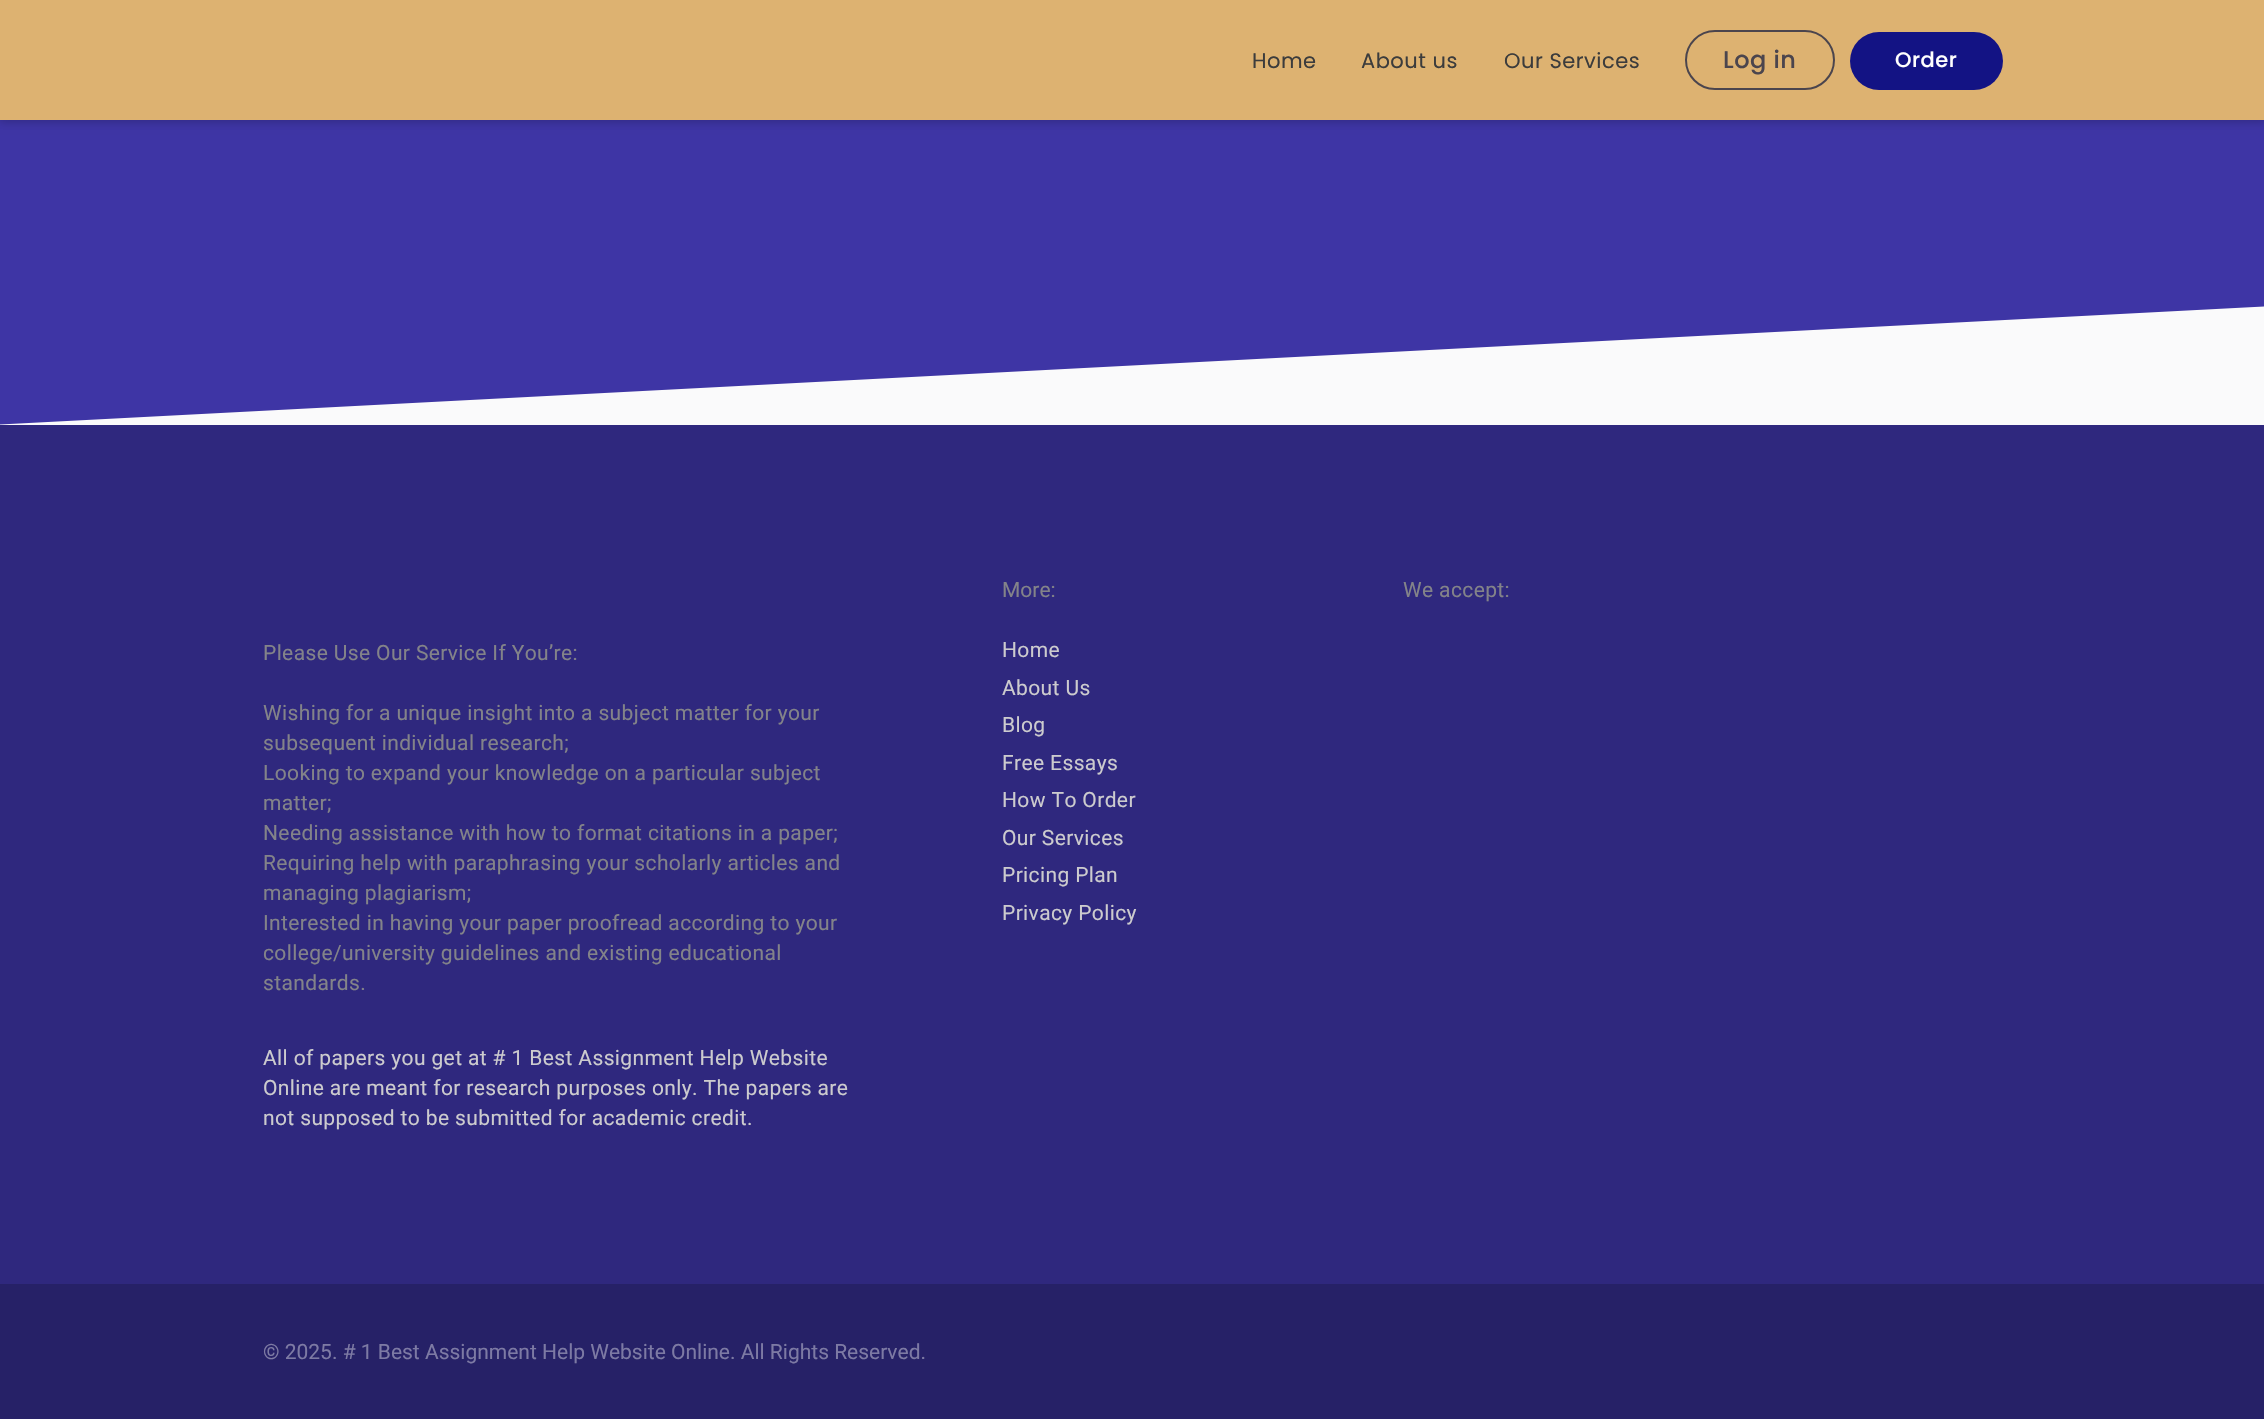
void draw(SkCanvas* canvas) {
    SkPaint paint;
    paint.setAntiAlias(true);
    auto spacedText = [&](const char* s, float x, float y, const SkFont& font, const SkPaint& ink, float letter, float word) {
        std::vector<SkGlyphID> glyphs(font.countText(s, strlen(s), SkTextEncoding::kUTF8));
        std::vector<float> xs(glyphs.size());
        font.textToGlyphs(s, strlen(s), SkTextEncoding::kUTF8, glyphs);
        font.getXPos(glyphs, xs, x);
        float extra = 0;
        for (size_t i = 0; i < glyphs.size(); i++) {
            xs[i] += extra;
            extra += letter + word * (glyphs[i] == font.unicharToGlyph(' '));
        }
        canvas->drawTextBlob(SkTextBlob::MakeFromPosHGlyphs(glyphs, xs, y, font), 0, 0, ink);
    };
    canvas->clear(0xFF262167);
    paint.setColor(0xFF3E35A5);
    canvas->drawRect(SkRect::MakeXYWH(0, 120, 2264, 155), paint);
    paint.setColor(0x33000000);
    paint.setMaskFilter(SkMaskFilter::MakeBlur(kNormal_SkBlurStyle, 4.5f));
    canvas->drawRect(SkRect::MakeXYWH(-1, -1, 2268, 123), paint);
    paint.setMaskFilter(nullptr);
    paint.setColor(0xFFDDB271);
    canvas->drawRect(SkRect::MakeXYWH(0, 0, 2264, 120), paint);
    SkFont font1(fontMgr->matchFamilyStyle("Poppins", SkFontStyle::Normal()), 21);
    font1.setSubpixel(true);
    paint.setColor(0xFF3C3C3C);
    spacedText("Home", 1252, 68, font1, paint, 0.5f, 0);
    spacedText("About us", 1361, 68, font1, paint, 0.5f, 0);
    spacedText("Our Services", 1504, 68, font1, paint, 0.5f, 0);
    paint.setStyle(SkPaint::kStroke_Style);
    paint.setStrokeWidth(2);
    paint.setColor(0xFF4B454D);
    canvas->drawRoundRect(SkRect::MakeXYWH(1686, 31, 148, 58), 29, 29, paint);
    SkFont font2(fontMgr->matchFamilyStyle("Poppins", SkFontStyle(500, SkFontStyle::kNormal_Width, SkFontStyle::kUpright_Slant)), 24);
    font2.setSubpixel(true);
    paint.setStyle(SkPaint::kFill_Style);
    spacedText("Log in", 1723, 68, font2, paint, 0.5f, 0);
    paint.setColor(0xFF131384);
    canvas->drawRoundRect(SkRect::MakeXYWH(1850, 32, 153, 58), 29, 29, paint);
    SkFont font3(fontMgr->matchFamilyStyle("Poppins", SkFontStyle(500, SkFontStyle::kNormal_Width, SkFontStyle::kUpright_Slant)), 21);
    font3.setSubpixel(true);
    paint.setColor(0xFFFFFFFF);
    spacedText("Order", 1895, 67, font3, paint, 0.5f, 0);
    paint.setColor(0xFFFAFAFB);
    canvas->drawRect(SkRect::MakeXYWH(0, 306, 2264, 119), paint);
    canvas->save();
    canvas->clipRect(SkRect::MakeXYWH(0, 275, 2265, 150));
    paint.setColor(0xFF3E35A5);
    canvas->drawPath(SkPathBuilder().moveTo(-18, 245).lineTo(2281, 125).lineTo(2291, 305).lineTo(-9, 425).close().detach(), paint);
    canvas->restore();
    paint.setColor(0xFF2F287E);
    canvas->drawRect(SkRect::MakeXYWH(0, 425, 2264, 859), paint);
    SkFont font4(fontMgr->matchFamilyStyle("Roboto", SkFontStyle::Normal()), 21);
    font4.setSubpixel(true);
    paint.setColor(0xFF838389);
    canvas->drawString("More:", 1002, 597, font4, paint);
    paint.setColor(0xFFCCCBCE);
    spacedText("Home", 1002, 657, font4, paint, 0.38f, 0);
    spacedText("About Us", 1002, 695, font4, paint, 0.38f, 0);
    spacedText("Blog", 1002, 732, font4, paint, 0.38f, 0);
    spacedText("Free Essays", 1002, 770, font4, paint, 0.38f, 0);
    spacedText("How To Order", 1002, 807, font4, paint, 0.38f, 0);
    spacedText("Our Services", 1002, 845, font4, paint, 0.38f, 0);
    spacedText("Pricing Plan", 1002, 882, font4, paint, 0.38f, 0);
    spacedText("Privacy Policy", 1002, 920, font4, paint, 0.38f, 0);
    paint.setColor(0xFF838389);
    spacedText("We accept:", 1403, 597, font4, paint, 0.38f, 0);
    spacedText("Please Use Our Service If You’re:", 263, 660, font4, paint, 0.38f, 0);
    spacedText("Wishing for a unique insight into a subject matter for your", 263, 720, font4, paint, 0.38f, 0);
    spacedText("subsequent individual research;", 263, 750, font4, paint, 0.38f, 0);
    spacedText("Looking to expand your knowledge on a particular subject", 263, 780, font4, paint, 0.38f, 0);
    spacedText("matter;", 263, 810, font4, paint, 0.38f, 0);
    spacedText("Needing assistance with how to format citations in a paper;", 263, 840, font4, paint, 0.38f, 0);
    spacedText("Requiring help with paraphrasing your scholarly articles and", 263, 870, font4, paint, 0.38f, 0);
    spacedText("managing plagiarism;", 263, 900, font4, paint, 0.38f, 0);
    spacedText("Interested in having your paper proofread according to your", 263, 930, font4, paint, 0.38f, 0);
    spacedText("college/university guidelines and existing educational", 263, 960, font4, paint, 0.38f, 0);
    spacedText("standards.", 263, 990, font4, paint, 0.38f, 0);
    paint.setColor(0xFFCCCBCE);
    spacedText("All of papers you get at # 1 Best Assignment Help Website", 263, 1065, font4, paint, 0.38f, 0);
    spacedText("Online are meant for research purposes only. The papers are", 263, 1095, font4, paint, 0.38f, 0);
    spacedText("not supposed to be submitted for academic credit.", 263, 1125, font4, paint, 0.38f, 0);
    paint.setColor(0xFF7D7AA4);
    canvas->drawString("© 2025. # 1 Best Assignment Help Website Online. All Rights Reserved.", 263, 1359, font4, paint);
}
